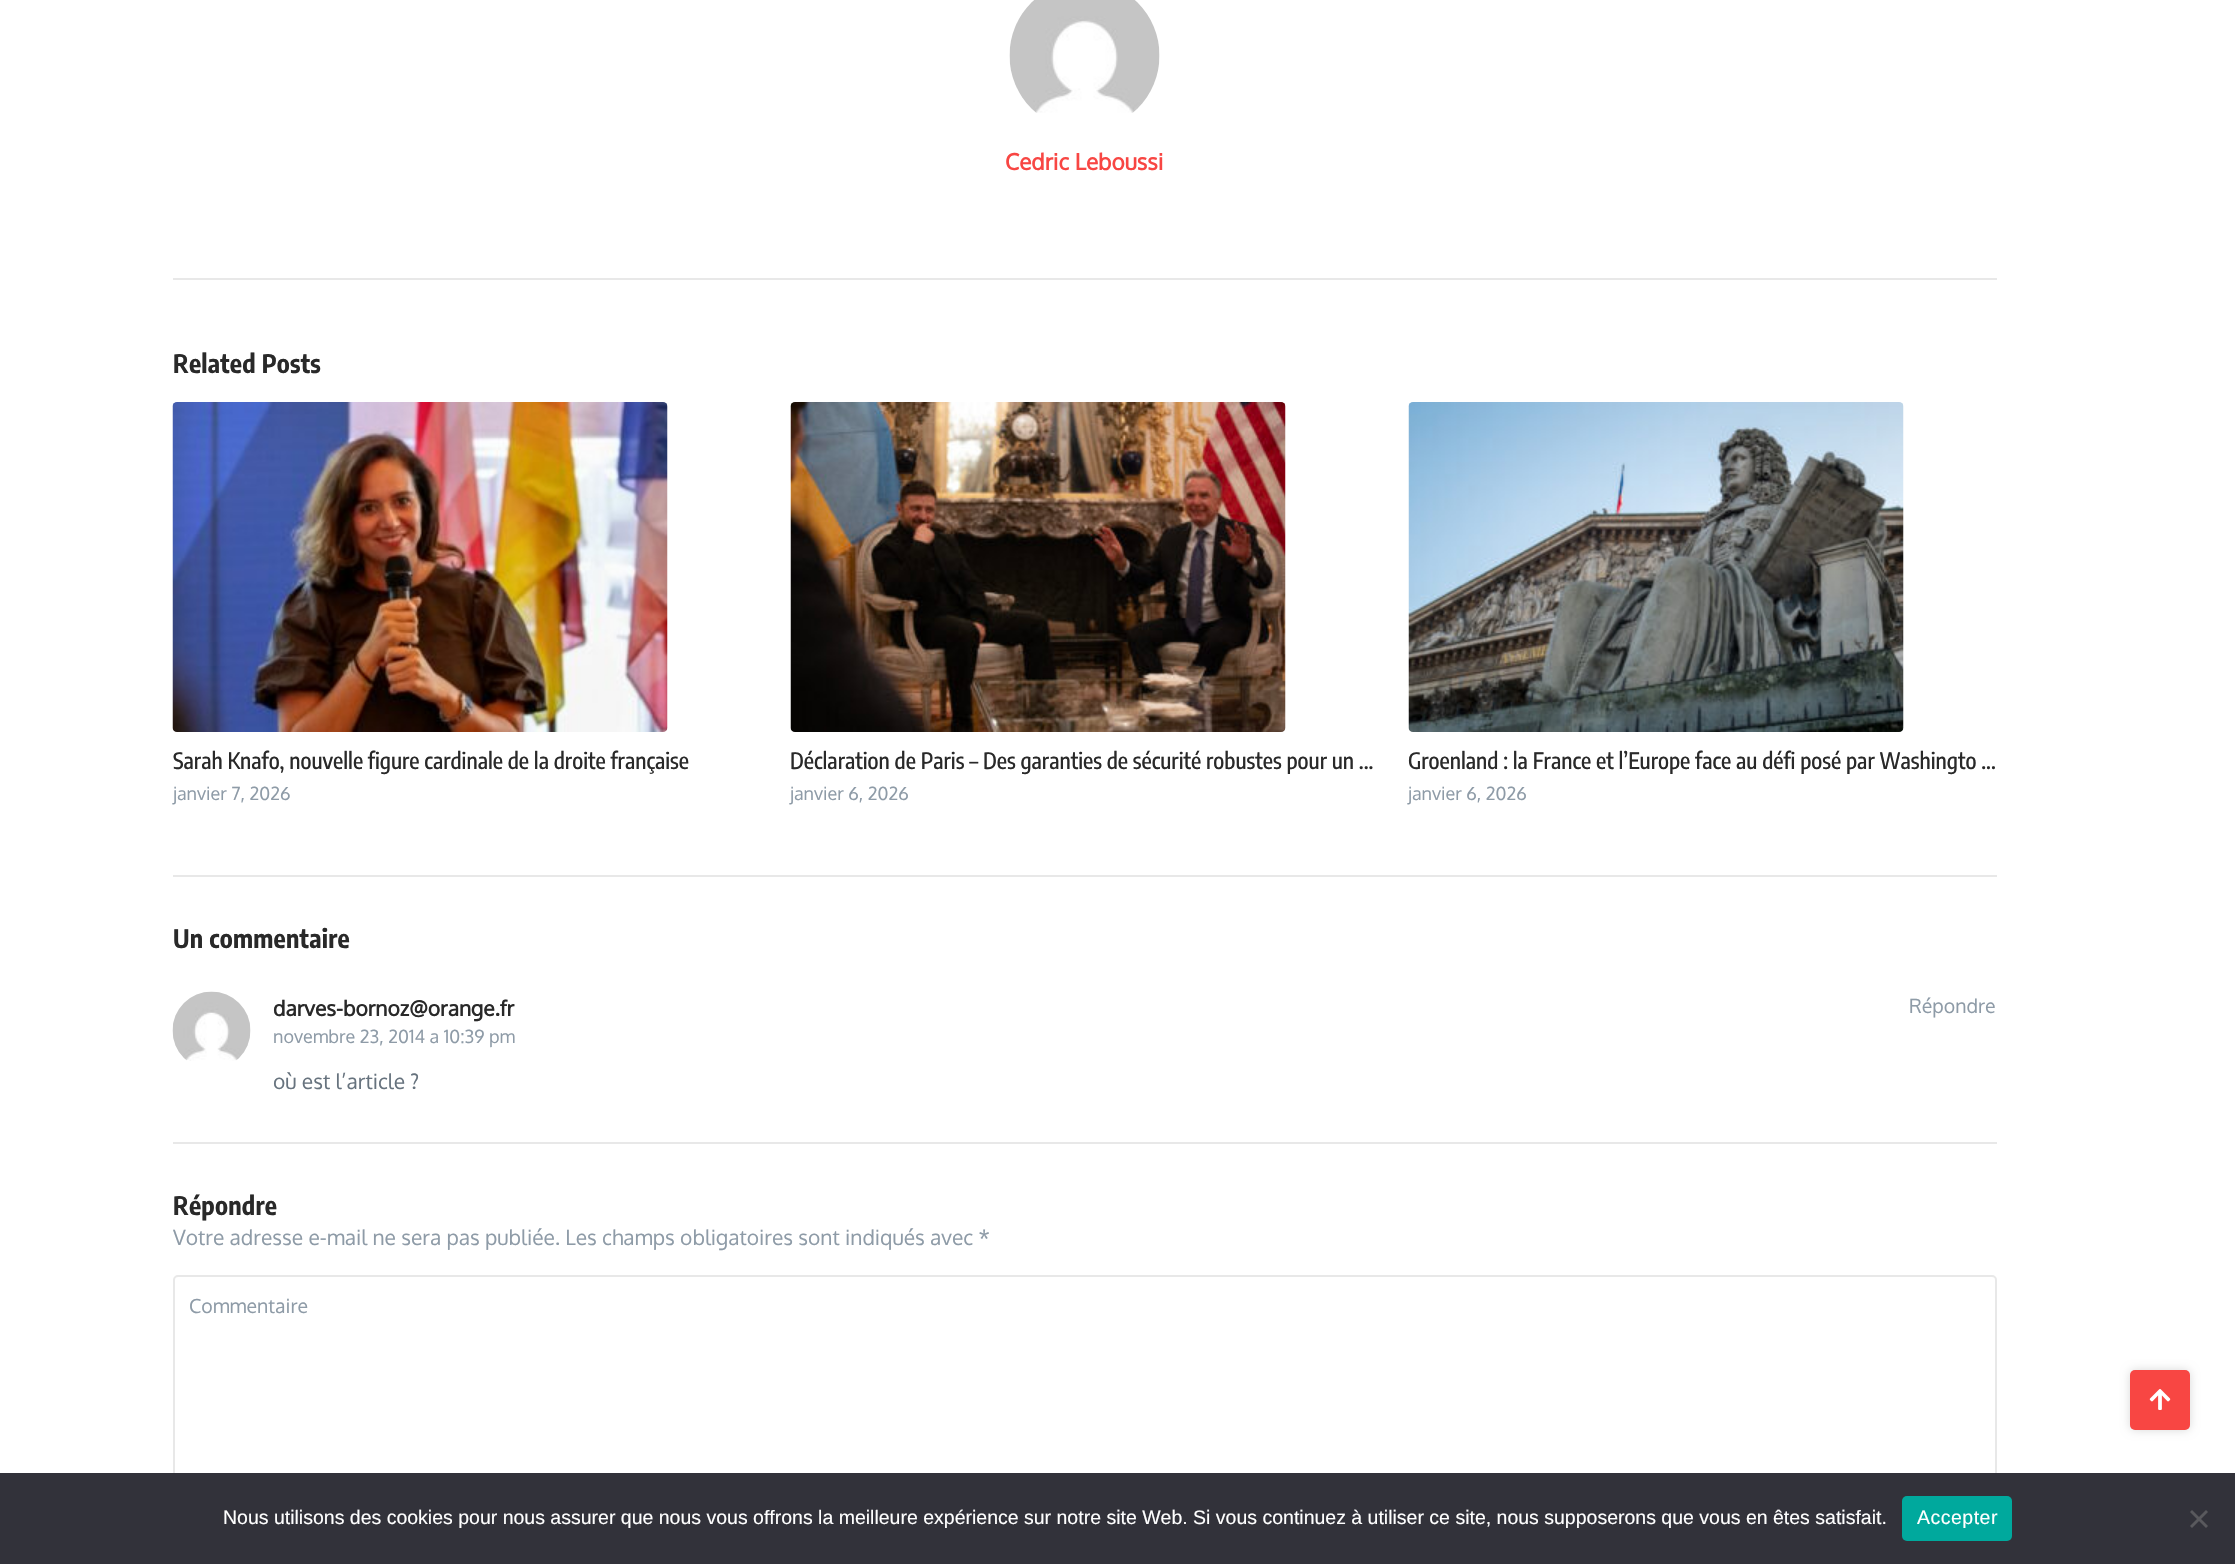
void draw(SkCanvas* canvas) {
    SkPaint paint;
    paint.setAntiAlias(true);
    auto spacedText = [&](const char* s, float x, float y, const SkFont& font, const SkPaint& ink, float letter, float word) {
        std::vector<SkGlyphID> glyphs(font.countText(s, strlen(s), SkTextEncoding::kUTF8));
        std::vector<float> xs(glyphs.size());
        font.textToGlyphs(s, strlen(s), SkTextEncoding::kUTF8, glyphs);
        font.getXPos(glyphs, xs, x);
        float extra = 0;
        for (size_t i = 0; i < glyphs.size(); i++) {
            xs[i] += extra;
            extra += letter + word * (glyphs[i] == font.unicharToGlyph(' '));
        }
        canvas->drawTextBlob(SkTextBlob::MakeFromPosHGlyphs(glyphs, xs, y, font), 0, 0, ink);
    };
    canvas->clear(0xFFFFFFFF);
    paint.setColor(0xFFE8E8E8);
    canvas->drawRect(SkRect::MakeXYWH(173, 278, 1824, 2), paint);
    canvas->drawImageRect(SkImages::DeferredFromEncodedData(SkData::MakeFromFileName("img1.png")), SkRect::MakeXYWH(1009, 0, 151, 113), SkSamplingOptions());
    SkFont font1(fontMgr->matchFamilyStyle("Oxygen", SkFontStyle::Bold()), 22.5f);
    font1.setSubpixel(true);
    paint.setColor(0xFFF84643);
    canvas->drawString("Cedric Leboussi", 1005, 170, font1, paint);
    paint.setColor(0xFFE8E8E8);
    canvas->drawRect(SkRect::MakeXYWH(173, 875, 1824, 2), paint);
    SkFont font2(fontMgr->matchFamilyStyle("Encode Sans Condensed", SkFontStyle::Bold()), 25.5f);
    font2.setSubpixel(true);
    paint.setColor(0xFF292929);
    spacedText("Related Posts", 173, 373, font2, paint, 0.25f, 0);
    canvas->drawImageRect(SkImages::DeferredFromEncodedData(SkData::MakeFromFileName("img2.png")), SkRect::MakeXYWH(172, 402, 496, 330), SkSamplingOptions());
    SkFont font3(fontMgr->matchFamilyStyle("Encode Sans Condensed", SkFontStyle(500, SkFontStyle::kNormal_Width, SkFontStyle::kUpright_Slant)), 22.5f);
    font3.setSubpixel(true);
    canvas->drawString("Sarah Knafo, nouvelle figure cardinale de la droite française", 173, 769, font3, paint);
    SkFont font4(fontMgr->matchFamilyStyle("Oxygen", SkFontStyle::Normal()), 18);
    font4.setSubpixel(true);
    paint.setColor(0xFF8E9BA7);
    canvas->drawString("janvier 7, 2026", 173, 800, font4, paint);
    canvas->drawImageRect(SkImages::DeferredFromEncodedData(SkData::MakeFromFileName("img3.png")), SkRect::MakeXYWH(790, 402, 496, 330), SkSamplingOptions());
    paint.setColor(0xFF292929);
    canvas->drawString("Déclaration de Paris – Des garanties de sécurité robustes pour un ...", 790, 769, font3, paint);
    paint.setColor(0xFF8E9BA7);
    canvas->drawString("janvier 6, 2026", 790, 800, font4, paint);
    canvas->drawImageRect(SkImages::DeferredFromEncodedData(SkData::MakeFromFileName("img4.png")), SkRect::MakeXYWH(1408, 402, 496, 330), SkSamplingOptions());
    paint.setColor(0xFF292929);
    canvas->drawString("Groenland : la France et l’Europe face au défi posé par Washingto ...", 1408, 769, font3, paint);
    paint.setColor(0xFF8E9BA7);
    canvas->drawString("janvier 6, 2026", 1408, 800, font4, paint);
    paint.setColor(0xFF292929);
    spacedText("Un commentaire", 173, 948, font2, paint, 0.25f, 0);
    paint.setColor(0xFFE8E8E8);
    canvas->drawRect(SkRect::MakeXYWH(173, 1142, 1824, 2), paint);
    canvas->drawImageRect(SkImages::DeferredFromEncodedData(SkData::MakeFromFileName("img5.png")), SkRect::MakeXYWH(172, 991, 79, 70), SkSamplingOptions());
    SkFont font5(fontMgr->matchFamilyStyle("Oxygen", SkFontStyle::Bold()), 21);
    font5.setSubpixel(true);
    paint.setColor(0xFF292929);
    canvas->drawString("darves-bornoz@orange.fr", 273, 1016, font5, paint);
    paint.setColor(0xFF8E9BA7);
    canvas->drawString("novembre 23, 2014 a 10:39 pm", 273, 1043, font4, paint);
    SkFont font6(fontMgr->matchFamilyStyle("Oxygen", SkFontStyle::Normal()), 19.5f);
    font6.setSubpixel(true);
    canvas->drawString("Répondre", 1909, 1013, font6, paint);
    SkFont font7(fontMgr->matchFamilyStyle("Oxygen", SkFontStyle::Normal()), 21);
    font7.setSubpixel(true);
    paint.setColor(0xFF67737E);
    canvas->drawString("où est l’article ?", 273, 1089, font7, paint);
    paint.setColor(0xFF292929);
    spacedText("Répondre", 173, 1215, font2, paint, 0.25f, 0);
    paint.setColor(0xFF8E9BA7);
    canvas->drawString("Votre adresse e-mail ne sera pas publiée. Les champs obligatoires sont indiqués avec *", 173, 1245, font7, paint);
    paint.setStyle(SkPaint::kStroke_Style);
    paint.setStrokeWidth(2);
    paint.setColor(0xFFE8E8E8);
    canvas->drawRoundRect(SkRect::MakeXYWH(174, 1276, 1822, 265), 4, 4, paint);
    paint.setStyle(SkPaint::kFill_Style);
    paint.setColor(0xFF8E9BA7);
    canvas->drawString("Commentaire", 189, 1313, font6, paint);
    paint.setColor(0x26000000);
    paint.setMaskFilter(SkMaskFilter::MakeBlur(kNormal_SkBlurStyle, 5));
    canvas->drawRoundRect(SkRect::MakeXYWH(2130, 1370, 60, 60), 5, 5, paint);
    paint.setMaskFilter(nullptr);
    paint.setColor(0xFFF84643);
    canvas->drawRoundRect(SkRect::MakeXYWH(2130, 1370, 60, 60), 5, 5, paint);
    canvas->drawImageRect(SkImages::DeferredFromEncodedData(SkData::MakeFromFileName("img6.png")), SkRect::MakeXYWH(2149, 1389, 22, 21), SkSamplingOptions());
    paint.setColor(0xFF32323A);
    canvas->drawRect(SkRect::MakeXYWH(0, 1473, 2235, 91), paint);
    SkFont font8(fontMgr->matchFamilyStyle("Liberation Sans", SkFontStyle::Normal()), 19.5f);
    font8.setSubpixel(true);
    paint.setColor(0xFFFFFFFF);
    canvas->drawString("Nous utilisons des cookies pour nous assurer que nous vous offrons la meilleure expérience sur notre site Web. Si vous continuez à utiliser ce site, nous supposerons que vous en êtes satisfait.", 223, 1524, font8, paint);
    paint.setColor(0xFF00A99D);
    canvas->drawRoundRect(SkRect::MakeXYWH(1902, 1496, 110, 45), 5, 5, paint);
    paint.setColor(0xFFFFFFFF);
    spacedText("Accepter", 1917, 1524, font8, paint, 0.5f, 0);
    paint.setColor(0xFF59595D);
    canvas->drawPath(SkPathBuilder().moveTo(2206, 1510).lineTo(2208, 1512).lineTo(2192, 1528).lineTo(2190, 1526).close().detach(), paint);
    canvas->drawPath(SkPathBuilder().moveTo(2190, 1512).lineTo(2192, 1510).lineTo(2208, 1526).lineTo(2206, 1528).close().detach(), paint);
}
